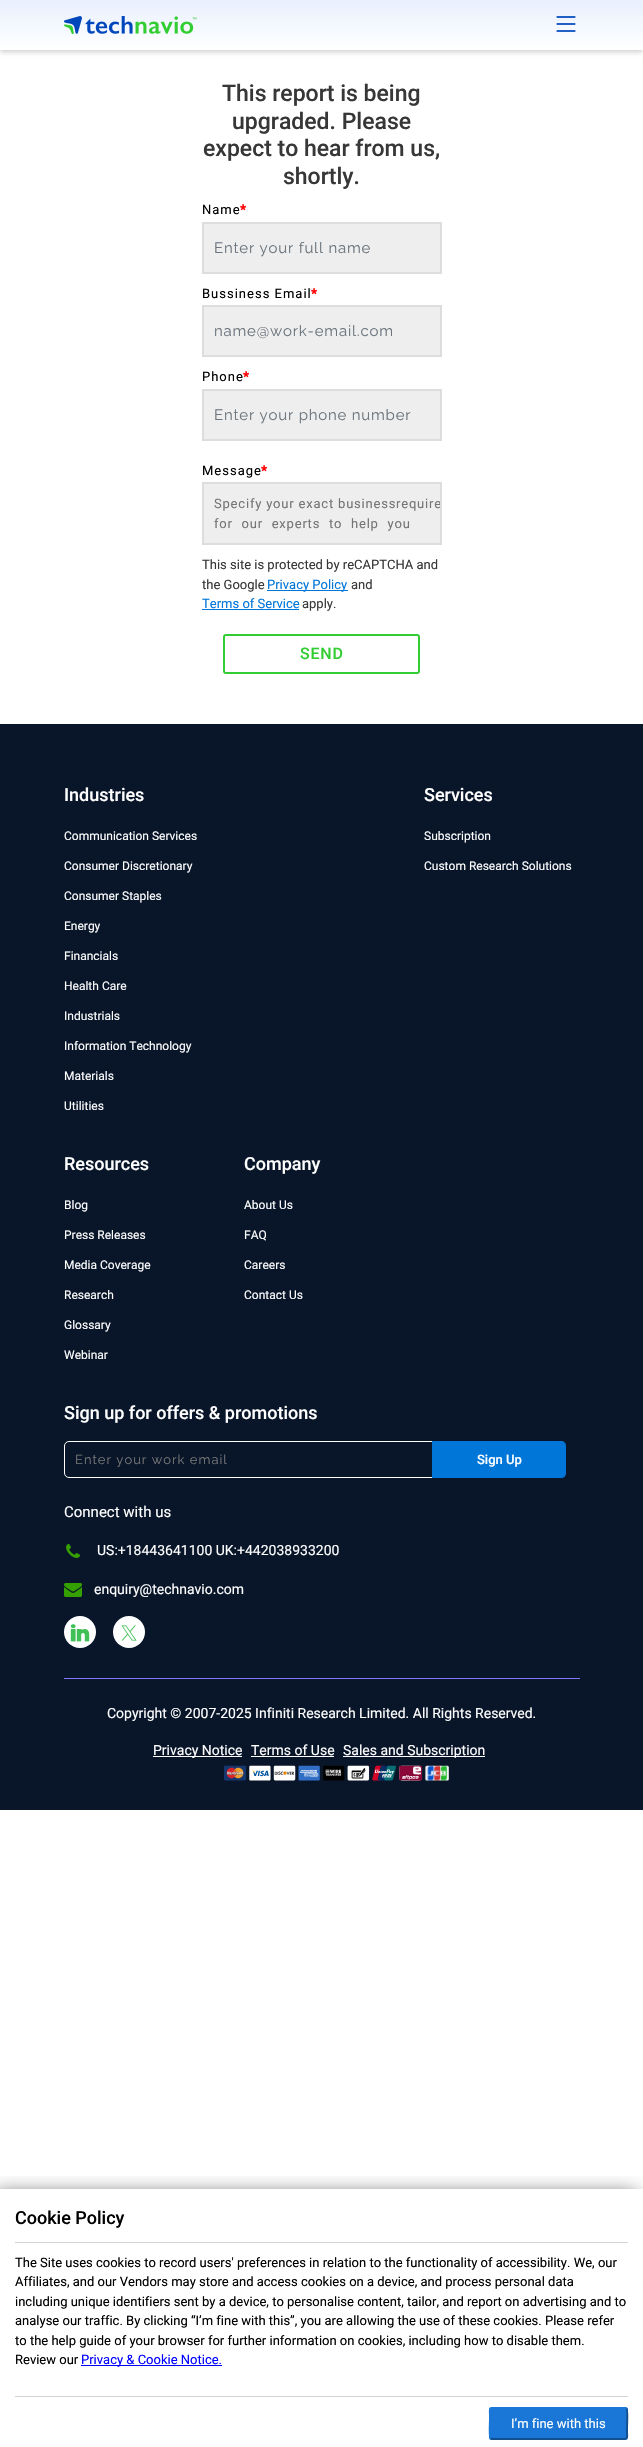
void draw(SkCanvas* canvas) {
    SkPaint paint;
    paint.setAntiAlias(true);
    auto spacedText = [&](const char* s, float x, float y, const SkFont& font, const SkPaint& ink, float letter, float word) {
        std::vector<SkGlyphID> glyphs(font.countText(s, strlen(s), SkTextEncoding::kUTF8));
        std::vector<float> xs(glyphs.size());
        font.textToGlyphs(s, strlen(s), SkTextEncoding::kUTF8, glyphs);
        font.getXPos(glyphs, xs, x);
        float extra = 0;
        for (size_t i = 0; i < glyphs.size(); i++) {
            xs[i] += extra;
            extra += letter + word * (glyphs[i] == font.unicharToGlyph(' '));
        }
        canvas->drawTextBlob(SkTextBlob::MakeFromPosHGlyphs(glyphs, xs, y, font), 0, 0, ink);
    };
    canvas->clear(0xFFFFFFFF);
    paint.setColor(0x30000000);
    paint.setMaskFilter(SkMaskFilter::MakeBlur(kNormal_SkBlurStyle, 2.5f));
    canvas->drawRect(SkRect::MakeXYWH(0, 2, 643, 50), paint);
    paint.setMaskFilter(nullptr);
    {
        const SkColor colors[] = {0xFFE8F0FE, 0xFFFFFFFF};
        const float stops[] = {0, 1};
        const SkPoint ends[] = {{322, 0}, {322, 50}};
        paint.setShader(SkGradientShader::MakeLinear(ends, colors, stops, 2, SkTileMode::kClamp));
        paint.setAlpha(255);
    }
    canvas->drawRect(SkRect::MakeXYWH(0, 0, 643, 50), paint);
    canvas->drawImageRect(SkImages::DeferredFromEncodedData(SkData::MakeFromFileName("img1.png")), SkRect::MakeXYWH(64, 16, 133, 18), SkSamplingOptions());
    canvas->drawImageRect(SkImages::DeferredFromEncodedData(SkData::MakeFromFileName("img2.png")), SkRect::MakeXYWH(556, 16, 20, 16), SkSamplingOptions());
    SkFont font1(fontMgr->matchFamilyStyle("Roboto", SkFontStyle(500, SkFontStyle::kNormal_Width, SkFontStyle::kUpright_Slant)), 23);
    font1.setSubpixel(true);
    paint.setShader(nullptr);
    paint.setColor(0xFF383737);
    canvas->drawString("This report is being", 222, 101, font1, paint);
    canvas->drawString("upgraded. Please", 232, 129, font1, paint);
    canvas->drawString("expect to hear from us,", 203, 156, font1, paint);
    canvas->drawString("shortly.", 283, 184, font1, paint);
    SkFont font2(fontMgr->matchFamilyStyle("Roboto", SkFontStyle::Normal()), 13);
    font2.setSubpixel(true);
    paint.setColor(0xFF000000);
    spacedText("Name", 202, 214, font2, paint, 1, 0);
    SkFont font3(fontMgr->matchFamilyStyle("Roboto", SkFontStyle::Bold()), 13);
    font3.setSubpixel(true);
    paint.setColor(0xFFFF0000);
    spacedText("*", 240, 214, font3, paint, 1, 0);
    paint.setStyle(SkPaint::kStroke_Style);
    paint.setStrokeWidth(1);
    paint.setColor(0xFFDDDDDD);
    canvas->drawRect(SkRect::MakeXYWH(202.5f, 222.5f, 239, 51), paint);
    paint.setStyle(SkPaint::kFill_Style);
    paint.setColor(0xFFEEEEEE);
    canvas->drawRect(SkRect::MakeXYWH(203.5f, 223.5f, 237, 49), paint);
    paint.setStyle(SkPaint::kStroke_Style);
    paint.setColor(0xFFDDDDDD);
    canvas->drawRect(SkRect::MakeXYWH(203.5f, 223.5f, 237, 49), paint);
    SkFont font4(fontMgr->matchFamilyStyle("Raleway", SkFontStyle::Normal()), 15);
    font4.setSubpixel(true);
    paint.setStyle(SkPaint::kFill_Style);
    paint.setColor(0xFF6C757D);
    spacedText("Enter your full name", 214, 253, font4, paint, 0.8f, 0);
    paint.setColor(0xFF000000);
    spacedText("Bussiness Email", 202, 298, font2, paint, 1, 0);
    paint.setColor(0xFFFF0000);
    spacedText("*", 311, 298, font3, paint, 1, 0);
    paint.setStyle(SkPaint::kStroke_Style);
    paint.setColor(0xFFDDDDDD);
    canvas->drawRect(SkRect::MakeXYWH(202.5f, 305.5f, 239, 51), paint);
    paint.setStyle(SkPaint::kFill_Style);
    paint.setColor(0xFFEEEEEE);
    canvas->drawRect(SkRect::MakeXYWH(203.5f, 306.5f, 237, 49), paint);
    paint.setStyle(SkPaint::kStroke_Style);
    paint.setColor(0xFFDDDDDD);
    canvas->drawRect(SkRect::MakeXYWH(203.5f, 306.5f, 237, 49), paint);
    paint.setStyle(SkPaint::kFill_Style);
    paint.setColor(0xFF6C757D);
    spacedText("name@work-email.com", 214, 336, font4, paint, 0.8f, 0);
    paint.setColor(0xFF000000);
    spacedText("Phone", 202, 381, font2, paint, 1, 0);
    paint.setColor(0xFFFF0000);
    spacedText("*", 243, 381, font3, paint, 1, 0);
    paint.setStyle(SkPaint::kStroke_Style);
    paint.setColor(0xFFDDDDDD);
    canvas->drawRect(SkRect::MakeXYWH(202.5f, 389.5f, 239, 51), paint);
    paint.setStyle(SkPaint::kFill_Style);
    paint.setColor(0xFFEEEEEE);
    canvas->drawRect(SkRect::MakeXYWH(203.5f, 390.5f, 237, 49), paint);
    paint.setStyle(SkPaint::kStroke_Style);
    paint.setColor(0xFFDDDDDD);
    canvas->drawRect(SkRect::MakeXYWH(203.5f, 390.5f, 237, 49), paint);
    paint.setStyle(SkPaint::kFill_Style);
    paint.setColor(0xFF6C757D);
    spacedText("Enter your phone number", 214, 420, font4, paint, 0.8f, 0);
    paint.setColor(0xFF000000);
    spacedText("Message", 202, 475, font2, paint, 1, 0);
    paint.setColor(0xFFFF0000);
    spacedText("*", 261, 475, font3, paint, 1, 0);
    paint.setStyle(SkPaint::kStroke_Style);
    paint.setColor(0xFFDDDDDD);
    canvas->drawRect(SkRect::MakeXYWH(202.5f, 482.5f, 239, 62), paint);
    paint.setStyle(SkPaint::kFill_Style);
    paint.setColor(0xFFEEEEEE);
    canvas->drawRect(SkRect::MakeXYWH(203.5f, 483.5f, 237, 60), paint);
    paint.setStyle(SkPaint::kStroke_Style);
    paint.setColor(0xFFDDDDDD);
    canvas->drawRect(SkRect::MakeXYWH(203.5f, 483.5f, 237, 60), paint);
    paint.setStyle(SkPaint::kFill_Style);
    paint.setColor(0xFF757575);
    spacedText("Specify your exact business", 214, 508, font2, paint, 0.8f, 0);
    canvas->save();
    canvas->clipRect(SkRect::MakeXYWH(204, 484, 236, 59));
    spacedText("require", 396, 508, font2, paint, 0.8f, 0);
    canvas->restore();
    spacedText("for our experts to help you", 214, 528, font2, paint, 0.8f, 4.75f);
    paint.setColor(0xFF383737);
    canvas->drawString("This site is protected by reCAPTCHA and", 202, 569, font2, paint);
    canvas->drawString("the Google", 202, 589, font2, paint);
    paint.setColor(0xFF0076D9);
    canvas->drawRect(SkRect::MakeXYWH(267, 590, 81, 1), paint);
    canvas->drawString("Privacy Policy", 267, 589, font2, paint);
    paint.setColor(0xFF383737);
    canvas->drawString("and", 351, 589, font2, paint);
    paint.setColor(0xFF0076D9);
    canvas->drawString("Terms of Service", 202, 608, font2, paint);
    canvas->drawRect(SkRect::MakeXYWH(202, 609, 97, 1), paint);
    paint.setColor(0xFF383737);
    canvas->drawString("apply.", 302, 608, font2, paint);
    paint.setStyle(SkPaint::kStroke_Style);
    paint.setStrokeWidth(2);
    paint.setColor(0xFF32CD33);
    canvas->drawRoundRect(SkRect::MakeXYWH(224, 635, 195, 38), 2, 2, paint);
    SkFont font5(fontMgr->matchFamilyStyle("Roboto", SkFontStyle(500, SkFontStyle::kNormal_Width, SkFontStyle::kUpright_Slant)), 16);
    font5.setSubpixel(true);
    paint.setStyle(SkPaint::kFill_Style);
    spacedText("SEND", 300, 659, font5, paint, 0.8f, 0);
    paint.setColor(0xFF09162A);
    canvas->drawRect(SkRect::MakeXYWH(0, 724, 643, 1086), paint);
    SkFont font6(fontMgr->matchFamilyStyle("Roboto", SkFontStyle(500, SkFontStyle::kNormal_Width, SkFontStyle::kUpright_Slant)), 18);
    font6.setSubpixel(true);
    paint.setColor(0xFFFFFFFF);
    canvas->drawString("Industries", 64, 801, font6, paint);
    SkFont font7(fontMgr->matchFamilyStyle("Roboto", SkFontStyle::Normal()), 12);
    font7.setSubpixel(true);
    canvas->drawString("Communication Services", 64, 840, font7, paint);
    canvas->drawString("Consumer Discretionary", 64, 870, font7, paint);
    canvas->drawString("Consumer Staples", 64, 900, font7, paint);
    canvas->drawString("Energy", 64, 930, font7, paint);
    canvas->drawString("Financials", 64, 960, font7, paint);
    canvas->drawString("Health Care", 64, 990, font7, paint);
    canvas->drawString("Industrials", 64, 1020, font7, paint);
    canvas->drawString("Information Technology", 64, 1050, font7, paint);
    canvas->drawString("Materials", 64, 1080, font7, paint);
    canvas->drawString("Utilities", 64, 1110, font7, paint);
    canvas->drawString("Services", 424, 801, font6, paint);
    canvas->drawString("Subscription", 424, 840, font7, paint);
    canvas->drawString("Custom Research Solutions", 424, 870, font7, paint);
    canvas->drawString("Resources", 64, 1170, font6, paint);
    canvas->drawString("Blog", 64, 1209, font7, paint);
    canvas->drawString("Press Releases", 64, 1239, font7, paint);
    canvas->drawString("Media Coverage", 64, 1269, font7, paint);
    canvas->drawString("Research", 64, 1299, font7, paint);
    canvas->drawString("Glossary", 64, 1329, font7, paint);
    canvas->drawString("Webinar", 64, 1359, font7, paint);
    canvas->drawString("Company", 244, 1170, font6, paint);
    canvas->drawString("About Us", 244, 1209, font7, paint);
    canvas->drawString("FAQ", 244, 1239, font7, paint);
    canvas->drawString("Careers", 244, 1269, font7, paint);
    canvas->drawString("Contact Us", 244, 1299, font7, paint);
    canvas->drawString("Sign up for offers & promotions", 64, 1419, font6, paint);
    paint.setStyle(SkPaint::kStroke_Style);
    paint.setStrokeWidth(1);
    canvas->drawPath(SkPathBuilder().moveTo(69, 1441.5f).lineTo(434.5f, 1441.5f).lineTo(434.5f, 1477.5f).lineTo(69, 1477.5f).cubicTo(66.5f, 1477.5f, 64.5f, 1475.5f, 64.5f, 1473).lineTo(64.5f, 1446).cubicTo(64.5f, 1443.5f, 66.5f, 1441.5f, 69, 1441.5f).close().detach(), paint);
    SkFont font8(fontMgr->matchFamilyStyle("Raleway", SkFontStyle::Normal()), 13);
    font8.setSubpixel(true);
    paint.setStyle(SkPaint::kFill_Style);
    paint.setColor(0xFF757575);
    spacedText("Enter your work email", 75, 1464, font8, paint, 1, 0);
    paint.setColor(0xFF0076D9);
    canvas->drawPath(SkPathBuilder().moveTo(432, 1441).lineTo(561, 1441).cubicTo(564, 1441, 566, 1443, 566, 1446).lineTo(566, 1473).cubicTo(566, 1476, 564, 1478, 561, 1478).lineTo(432, 1478).close().detach(), paint);
    SkFont font9(fontMgr->matchFamilyStyle("Roboto", SkFontStyle(500, SkFontStyle::kNormal_Width, SkFontStyle::kUpright_Slant)), 13);
    font9.setSubpixel(true);
    paint.setColor(0xFFFFFFFF);
    canvas->drawString("Sign Up", 477, 1464, font9, paint);
    SkFont font10(fontMgr->matchFamilyStyle("Roboto", SkFontStyle::Normal()), 15);
    font10.setSubpixel(true);
    canvas->drawString("Connect with us", 64, 1517, font10, paint);
    canvas->drawImageRect(SkImages::DeferredFromEncodedData(SkData::MakeFromFileName("img3.png")), SkRect::MakeXYWH(66, 1544, 14, 14), SkSamplingOptions());
    SkFont font11(fontMgr->matchFamilyStyle("Roboto", SkFontStyle::Normal()), 14);
    font11.setSubpixel(true);
    canvas->drawString("US:+18443641100 UK:+442038933200", 97, 1555, font11, paint);
    canvas->drawImageRect(SkImages::DeferredFromEncodedData(SkData::MakeFromFileName("img4.png")), SkRect::MakeXYWH(64, 1583, 18, 14), SkSamplingOptions());
    canvas->drawString("enquiry@technavio.com", 94, 1594, font11, paint);
    canvas->drawCircle(80, 1632, 16, paint);
    canvas->drawImageRect(SkImages::DeferredFromEncodedData(SkData::MakeFromFileName("img5.png")), SkRect::MakeXYWH(70, 1624, 20, 18), SkSamplingOptions());
    canvas->drawCircle(129, 1632, 16, paint);
    canvas->drawImageRect(SkImages::DeferredFromEncodedData(SkData::MakeFromFileName("img6.png")), SkRect::MakeXYWH(121, 1625, 16, 16), SkSamplingOptions());
    paint.setColor(0xFF8577FB);
    canvas->drawRect(SkRect::MakeXYWH(64, 1678, 516, 1), paint);
    paint.setColor(0xFFFFFFFF);
    canvas->drawString("Copyright © 2007-2025 Infiniti Research Limited. All Rights Reserved.", 107, 1718, font11, paint);
    canvas->drawRect(SkRect::MakeXYWH(153, 1756, 89, 1), paint);
    canvas->drawString("Privacy Notice", 153, 1755, font11, paint);
    canvas->drawString("Terms of Use", 251, 1755, font11, paint);
    canvas->drawRect(SkRect::MakeXYWH(251, 1756, 83, 1), paint);
    canvas->drawRect(SkRect::MakeXYWH(343, 1756, 142, 1), paint);
    canvas->drawString("Sales and Subscription", 343, 1755, font11, paint);
    canvas->drawImageRect(SkImages::DeferredFromEncodedData(SkData::MakeFromFileName("img7.png")), SkRect::MakeXYWH(224, 1765, 225, 16), SkSamplingOptions());
    canvas->save();
    canvas->clipRect(SkRect::MakeXYWH(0, 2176, 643, 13));
    paint.setColor(0xB8000000);
    paint.setMaskFilter(SkMaskFilter::MakeBlur(kNormal_SkBlurStyle, 10));
    canvas->drawRect(SkRect::MakeXYWH(-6, 2195, 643, 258), paint);
    paint.setMaskFilter(nullptr);
    canvas->restore();
    paint.setColor(0xFFD3D3D3);
    canvas->drawRect(SkRect::MakeXYWH(15, 2242, 613, 1), paint);
    paint.setColor(0xFF000000);
    canvas->drawString("Cookie Policy", 15, 2224, font6, paint);
    paint.setColor(0xFFD3D3D3);
    canvas->drawRect(SkRect::MakeXYWH(15, 2396, 613, 1), paint);
    paint.setColor(0xFF000000);
    canvas->drawString("The Site uses cookies to record users' preferences in relation to the functionality of accessibility. We, our", 15, 2267, font2, paint);
    canvas->drawString("Affiliates, and our Vendors may store and access cookies on a device, and process personal data", 15, 2286, font2, paint);
    canvas->drawString("including unique identifiers sent by a device, to personalise content, tailor, and report on advertising and to", 15, 2306, font2, paint);
    canvas->drawString("analyse our traffic. By clicking “I’m fine with this”, you are allowing the use of these cookies. Please refer", 15, 2325, font2, paint);
    canvas->drawString("to the help guide of your browser for further information on cookies, including how to disable them.", 15, 2345, font2, paint);
    canvas->drawString("Review our", 15, 2364, font2, paint);
    paint.setColor(0xFF0000FF);
    canvas->drawRect(SkRect::MakeXYWH(81, 2365, 141, 1), paint);
    canvas->drawString("Privacy & Cookie Notice.", 81, 2364, font2, paint);
    paint.setColor(0xFF1A77D7);
    canvas->drawRoundRect(SkRect::MakeXYWH(489, 2407, 139, 33), 3, 3, paint);
    paint.setStyle(SkPaint::kStroke_Style);
    paint.setStrokeWidth(2);
    paint.setColor(0xFF114F8F);
    canvas->drawPath(SkPathBuilder().moveTo(626.5f, 2408.5f).cubicTo(628, 2410, 627, 2425, 627, 2428).lineTo(627, 2432.5f).cubicTo(627, 2434, 628, 2439, 625, 2439).lineTo(492, 2439).lineTo(490.5f, 2438.5f).detach(), paint);
    paint.setColor(0xFF1A77D7);
    canvas->drawPath(SkPathBuilder().moveTo(490.5f, 2438.5f).cubicTo(489, 2437, 490, 2422, 490, 2419).lineTo(490, 2414.5f).cubicTo(490, 2413, 489, 2408, 492, 2408).lineTo(625, 2408).lineTo(626.5f, 2408.5f).detach(), paint);
    paint.setStyle(SkPaint::kFill_Style);
    paint.setColor(0xFFFFFFFF);
    canvas->drawString("I’m fine with this", 511, 2428, font2, paint);
}
